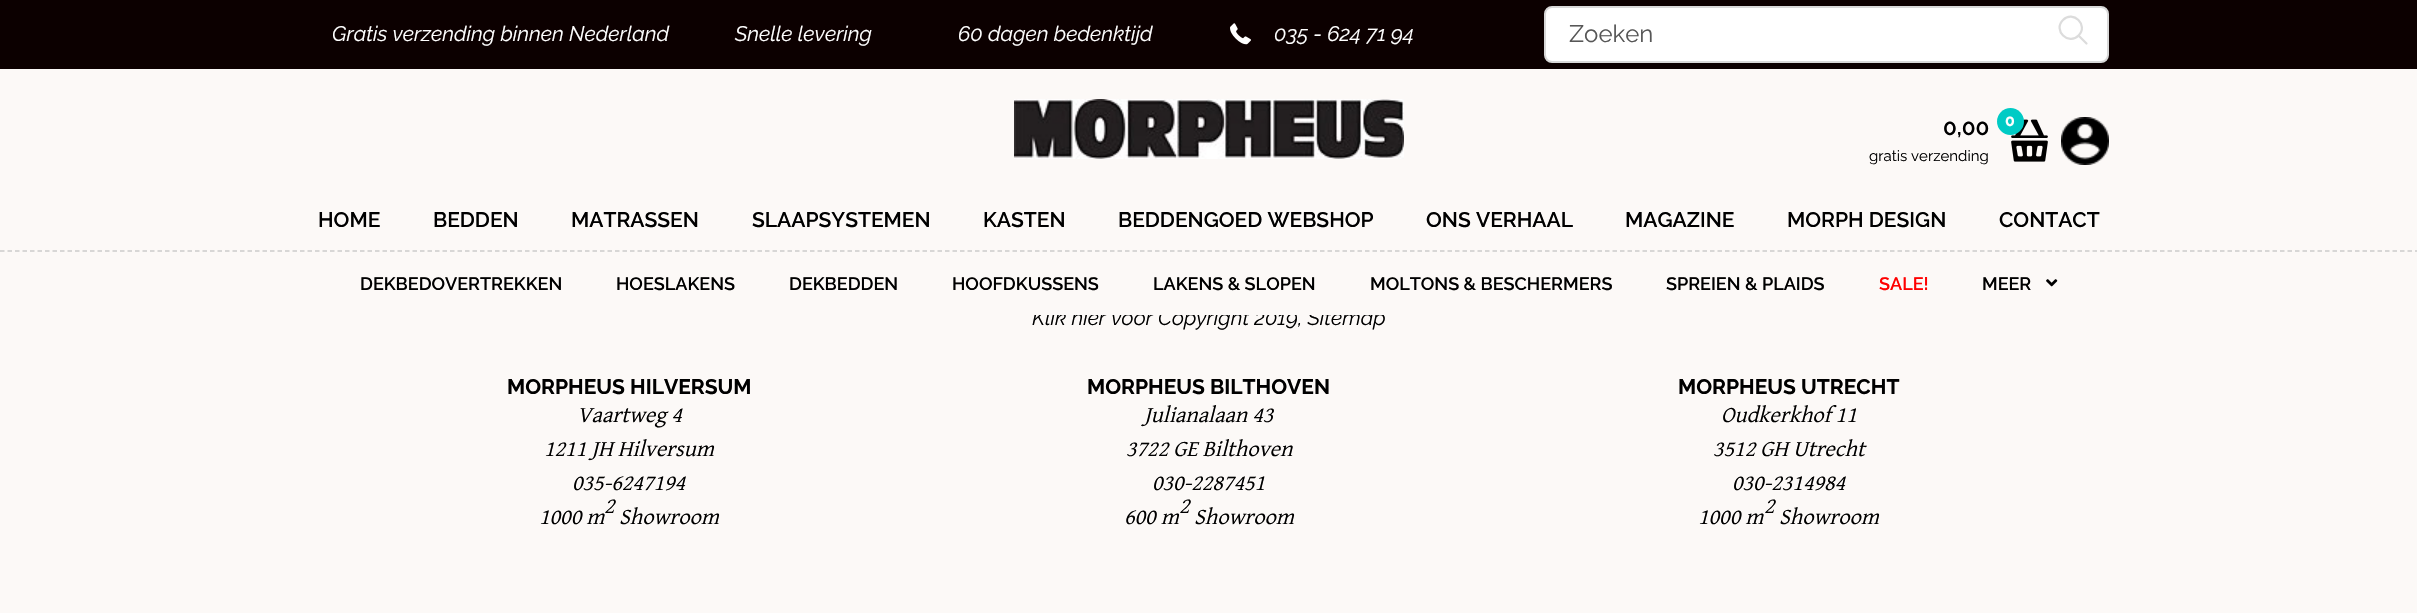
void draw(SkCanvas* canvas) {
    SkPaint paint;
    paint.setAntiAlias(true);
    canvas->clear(0xFFFCF9F7);
    paint.setColor(0xFF0C0000);
    canvas->drawRect(SkRect::MakeXYWH(0, 0, 2417, 69), paint);
    SkFont font1(fontMgr->matchFamilyStyle("Raleway", SkFontStyle::Italic()), 21);
    font1.setSubpixel(true);
    paint.setColor(0xFFFFFFFF);
    canvas->drawString("Gratis verzending binnen Nederland", 332, 41, font1, paint);
    canvas->drawString("Snelle levering", 735, 41, font1, paint);
    canvas->drawString("60 dagen bedenktijd", 958, 41, font1, paint);
    canvas->drawImageRect(SkImages::DeferredFromEncodedData(SkData::MakeFromFileName("img1.png")), SkRect::MakeXYWH(1230, 23, 21, 22), SkSamplingOptions());
    canvas->drawString("035 - 624 71 94", 1274, 41, font1, paint);
    canvas->drawRoundRect(SkRect::MakeXYWH(1545, 7, 563, 55), 7, 7, paint);
    paint.setStyle(SkPaint::kStroke_Style);
    paint.setStrokeWidth(2);
    paint.setColor(0xFFD8D8D8);
    canvas->drawRoundRect(SkRect::MakeXYWH(1545, 7, 563, 55), 7, 7, paint);
    SkFont font2(fontMgr->matchFamilyStyle("Raleway", SkFontStyle::Normal()), 24);
    font2.setSubpixel(true);
    paint.setStyle(SkPaint::kFill_Style);
    paint.setColor(0xFF575757);
    canvas->drawString("Zoeken", 1569, 42, font2, paint);
    paint.setStyle(SkPaint::kStroke_Style);
    paint.setStrokeWidth(2.2f);
    paint.setStrokeCap(SkPaint::kRound_Cap);
    paint.setStrokeJoin(SkPaint::kRound_Join);
    paint.setColor(0xFFDCDCDC);
    canvas->drawPath(SkPathBuilder().moveTo(2086.5f, 43.5f).lineTo(2078.5f, 35.5f).moveTo(2078.5f, 35.5f).cubicTo(2089, 25.5f, 2073, 9.5f, 2063, 20).cubicTo(2052.5f, 30, 2068.5f, 46, 2078.5f, 35.5f).close().detach(), paint);
    canvas->drawImageRect(SkImages::DeferredFromEncodedData(SkData::MakeFromFileName("img2.png")), SkRect::MakeXYWH(1014, 99, 390, 60), SkSamplingOptions());
    SkFont font3(fontMgr->matchFamilyStyle("Raleway", SkFontStyle(600, SkFontStyle::kNormal_Width, SkFontStyle::kUpright_Slant)), 22.5f);
    font3.setSubpixel(true);
    paint.setStyle(SkPaint::kFill_Style);
    paint.setColor(0xFF000000);
    canvas->drawString("0,00", 1943, 135, font3, paint);
    SkFont font4(fontMgr->matchFamilyStyle("Raleway", SkFontStyle::Normal()), 15);
    font4.setSubpixel(true);
    canvas->drawString("gratis verzending", 1869, 161, font4, paint);
    canvas->drawImageRect(SkImages::DeferredFromEncodedData(SkData::MakeFromFileName("img3.png")), SkRect::MakeXYWH(2011, 119, 37, 43), SkSamplingOptions());
    paint.setColor(0xFF00CBC5);
    canvas->drawCircle(2010.5f, 121.5f, 13.5f, paint);
    SkFont font5(fontMgr->matchFamilyStyle("Raleway", SkFontStyle::Bold()), 16);
    font5.setSubpixel(true);
    paint.setColor(0xFFFFFFFF);
    canvas->drawString("0", 2005, 126, font5, paint);
    canvas->drawImageRect(SkImages::DeferredFromEncodedData(SkData::MakeFromFileName("img4.png")), SkRect::MakeXYWH(2061, 117, 48, 48), SkSamplingOptions());
    SkFont font6(fontMgr->matchFamilyStyle("Raleway", SkFontStyle(600, SkFontStyle::kNormal_Width, SkFontStyle::kUpright_Slant)), 21);
    font6.setSubpixel(true);
    paint.setColor(0xFF000000);
    canvas->drawString("HOME", 318, 227, font6, paint);
    canvas->drawString("BEDDEN", 433, 227, font6, paint);
    canvas->drawString("MATRASSEN", 571, 227, font6, paint);
    canvas->drawString("SLAAPSYSTEMEN", 752, 227, font6, paint);
    canvas->drawString("KASTEN", 983, 227, font6, paint);
    canvas->drawString("BEDDENGOED WEBSHOP", 1118, 227, font6, paint);
    canvas->drawString("ONS VERHAAL", 1426, 227, font6, paint);
    canvas->drawString("MAGAZINE", 1625, 227, font6, paint);
    canvas->drawString("MORPH DESIGN", 1787, 227, font6, paint);
    canvas->drawString("CONTACT", 1999, 227, font6, paint);
    canvas->drawString("Klik hier voor Copyright 2019, Sitemap", 1032, 325, font1, paint);
    paint.setColor(0xFFFCF9F7);
    canvas->drawRect(SkRect::MakeXYWH(1034, 309, 350, 6), paint);
    paint.setStyle(SkPaint::kStroke_Style);
    paint.setStrokeWidth(1.5f);
    paint.setStrokeCap(SkPaint::kButt_Cap);
    paint.setStrokeJoin(SkPaint::kMiter_Join);
    paint.setColor(0xFFCCCCCC);
    paint.setPathEffect(SkDashPathEffect::Make({{4.5f, 3}}, 0));
    canvas->drawPath(SkPathBuilder().moveTo(0, 251).lineTo(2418, 251).detach(), paint);
    paint.setPathEffect(nullptr);
    SkFont font7(fontMgr->matchFamilyStyle("Raleway", SkFontStyle(600, SkFontStyle::kNormal_Width, SkFontStyle::kUpright_Slant)), 18);
    font7.setSubpixel(true);
    paint.setStyle(SkPaint::kFill_Style);
    paint.setColor(0xFF000000);
    canvas->drawString("DEKBEDOVERTREKKEN", 360, 290, font7, paint);
    canvas->drawString("HOESLAKENS", 616, 290, font7, paint);
    canvas->drawString("DEKBEDDEN", 789, 290, font7, paint);
    canvas->drawString("HOOFDKUSSENS", 952, 290, font7, paint);
    canvas->drawString("LAKENS & SLOPEN", 1153, 290, font7, paint);
    canvas->drawString("MOLTONS & BESCHERMERS", 1370, 290, font7, paint);
    canvas->drawString("SPREIEN & PLAIDS", 1666, 290, font7, paint);
    paint.setColor(0xFFFF0000);
    canvas->drawString("SALE!", 1879, 290, font7, paint);
    paint.setColor(0xFF000000);
    canvas->drawString("MEER", 1982, 290, font7, paint);
    canvas->drawImageRect(SkImages::DeferredFromEncodedData(SkData::MakeFromFileName("img5.png")), SkRect::MakeXYWH(2046, 279, 12, 8), SkSamplingOptions());
    SkFont font8(fontMgr->matchFamilyStyle("Raleway", SkFontStyle::Bold()), 21);
    font8.setSubpixel(true);
    canvas->drawString("MORPHEUS HILVERSUM", 507, 394, font8, paint);
    SkFont font9(fontMgr->matchFamilyStyle("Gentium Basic", SkFontStyle::Italic()), 22.5f);
    font9.setSubpixel(true);
    canvas->drawString("Vaartweg 4", 577, 422, font9, paint);
    canvas->drawString("1211 JH Hilversum", 544, 456, font9, paint);
    canvas->drawString("035-6247194", 572, 490, font9, paint);
    canvas->drawString("1000 m", 539, 524, font9, paint);
    canvas->drawString("2", 604, 513, font9, paint);
    canvas->drawString("Showroom", 619, 524, font9, paint);
    canvas->drawString("MORPHEUS BILTHOVEN", 1087, 394, font8, paint);
    canvas->drawString("Julianalaan 43", 1144, 422, font9, paint);
    canvas->drawString("3722 GE Bilthoven", 1126, 456, font9, paint);
    canvas->drawString("030-2287451", 1152, 490, font9, paint);
    canvas->drawString("600 m", 1124, 524, font9, paint);
    canvas->drawString("2", 1179, 513, font9, paint);
    canvas->drawString("Showroom", 1194, 524, font9, paint);
    canvas->drawString("MORPHEUS UTRECHT", 1678, 394, font8, paint);
    canvas->drawString("Oudkerkhof 11", 1721, 422, font9, paint);
    canvas->drawString("3512 GH Utrecht", 1713, 456, font9, paint);
    canvas->drawString("030-2314984", 1732, 490, font9, paint);
    canvas->drawString("1000 m", 1698, 524, font9, paint);
    canvas->drawString("2", 1764, 513, font9, paint);
    canvas->drawString("Showroom", 1779, 524, font9, paint);
}
